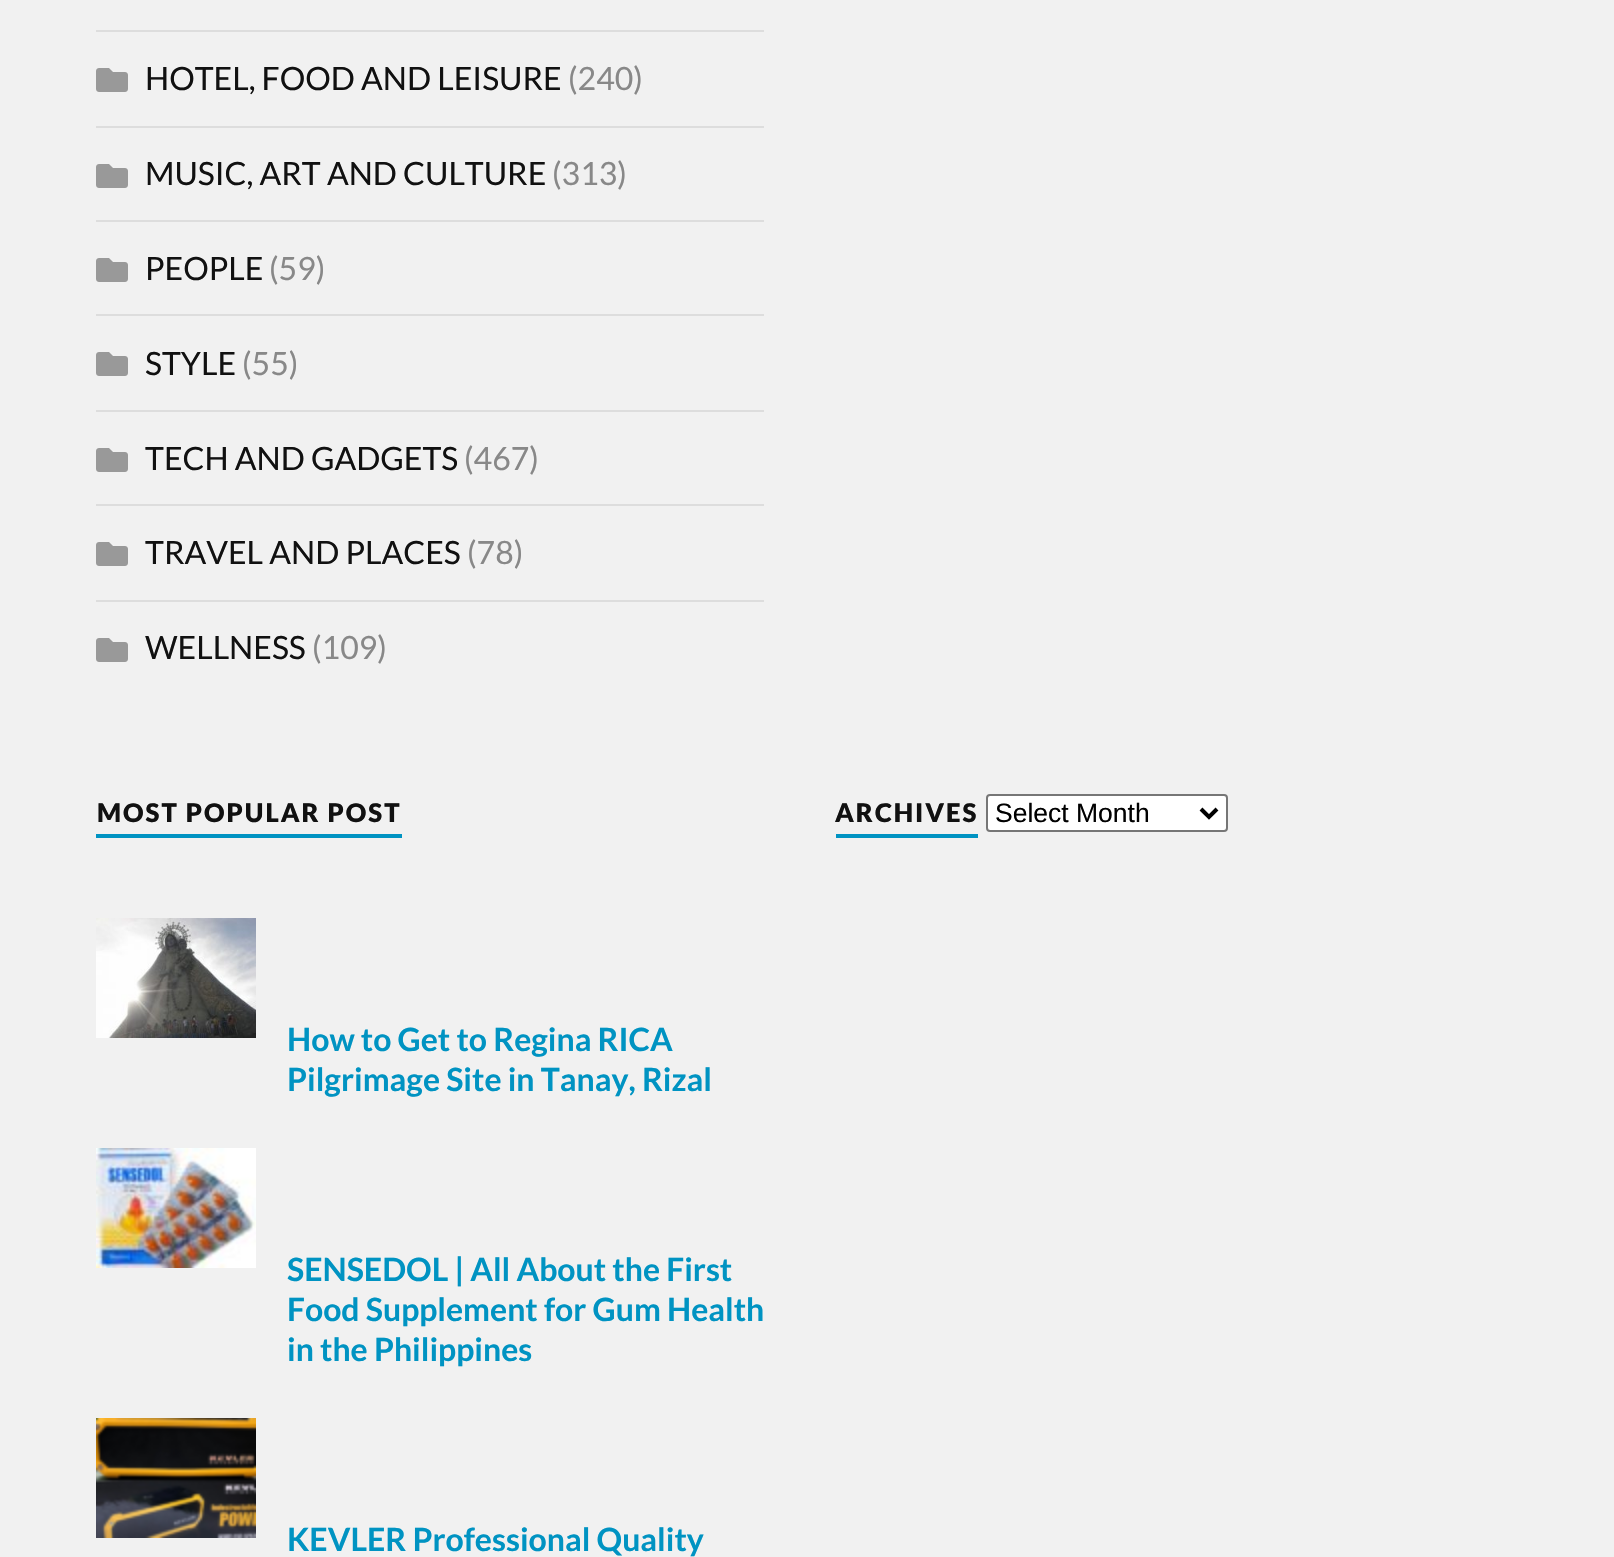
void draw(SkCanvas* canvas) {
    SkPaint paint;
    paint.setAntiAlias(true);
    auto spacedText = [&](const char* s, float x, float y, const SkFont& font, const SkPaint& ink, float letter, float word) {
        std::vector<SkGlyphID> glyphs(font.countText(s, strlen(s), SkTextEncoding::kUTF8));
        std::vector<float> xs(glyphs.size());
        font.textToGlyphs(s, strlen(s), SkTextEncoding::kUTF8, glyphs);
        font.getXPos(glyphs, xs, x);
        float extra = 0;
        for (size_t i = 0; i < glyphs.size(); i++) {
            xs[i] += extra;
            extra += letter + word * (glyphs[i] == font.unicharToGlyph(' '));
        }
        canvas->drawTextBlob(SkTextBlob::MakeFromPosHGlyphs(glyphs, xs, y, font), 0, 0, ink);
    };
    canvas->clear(0xFFF1F1F1);
    paint.setColor(0xFFDDDDDD);
    canvas->drawRect(SkRect::MakeXYWH(96, 30, 668, 2), paint);
    canvas->drawRect(SkRect::MakeXYWH(96, 126, 668, 2), paint);
    canvas->drawImageRect(SkImages::DeferredFromEncodedData(SkData::MakeFromFileName("img1.png")), SkRect::MakeXYWH(96, 68, 32, 24), SkSamplingOptions());
    SkFont font1(fontMgr->matchFamilyStyle("Lato", SkFontStyle::Normal()), 32);
    font1.setSubpixel(true);
    paint.setColor(0xFF111111);
    canvas->drawString("HOTEL, FOOD AND LEISURE", 145, 90, font1, paint);
    paint.setColor(0xFF888888);
    canvas->drawString("(240)", 568, 90, font1, paint);
    paint.setColor(0xFFDDDDDD);
    canvas->drawRect(SkRect::MakeXYWH(96, 220, 668, 2), paint);
    canvas->drawImageRect(SkImages::DeferredFromEncodedData(SkData::MakeFromFileName("img1.png")), SkRect::MakeXYWH(96, 164, 32, 24), SkSamplingOptions());
    paint.setColor(0xFF111111);
    canvas->drawString("MUSIC, ART AND CULTURE", 145, 185, font1, paint);
    paint.setColor(0xFF888888);
    canvas->drawString("(313)", 552, 185, font1, paint);
    paint.setColor(0xFFDDDDDD);
    canvas->drawRect(SkRect::MakeXYWH(96, 314, 668, 2), paint);
    canvas->drawImageRect(SkImages::DeferredFromEncodedData(SkData::MakeFromFileName("img1.png")), SkRect::MakeXYWH(96, 258, 32, 24), SkSamplingOptions());
    paint.setColor(0xFF111111);
    canvas->drawString("PEOPLE", 145, 280, font1, paint);
    paint.setColor(0xFF888888);
    canvas->drawString("(59)", 269, 280, font1, paint);
    paint.setColor(0xFFDDDDDD);
    canvas->drawRect(SkRect::MakeXYWH(96, 410, 668, 2), paint);
    canvas->drawImageRect(SkImages::DeferredFromEncodedData(SkData::MakeFromFileName("img1.png")), SkRect::MakeXYWH(96, 352, 32, 24), SkSamplingOptions());
    paint.setColor(0xFF111111);
    canvas->drawString("STYLE", 145, 375, font1, paint);
    paint.setColor(0xFF888888);
    canvas->drawString("(55)", 242, 375, font1, paint);
    paint.setColor(0xFFDDDDDD);
    canvas->drawRect(SkRect::MakeXYWH(96, 504, 668, 2), paint);
    canvas->drawImageRect(SkImages::DeferredFromEncodedData(SkData::MakeFromFileName("img1.png")), SkRect::MakeXYWH(96, 448, 32, 24), SkSamplingOptions());
    paint.setColor(0xFF111111);
    canvas->drawString("TECH AND GADGETS", 145, 470, font1, paint);
    paint.setColor(0xFF888888);
    canvas->drawString("(467)", 464, 470, font1, paint);
    paint.setColor(0xFFDDDDDD);
    canvas->drawRect(SkRect::MakeXYWH(96, 600, 668, 2), paint);
    canvas->drawImageRect(SkImages::DeferredFromEncodedData(SkData::MakeFromFileName("img1.png")), SkRect::MakeXYWH(96, 542, 32, 24), SkSamplingOptions());
    paint.setColor(0xFF111111);
    canvas->drawString("TRAVEL AND PLACES", 145, 564, font1, paint);
    paint.setColor(0xFF888888);
    canvas->drawString("(78)", 467, 564, font1, paint);
    canvas->drawImageRect(SkImages::DeferredFromEncodedData(SkData::MakeFromFileName("img1.png")), SkRect::MakeXYWH(96, 638, 32, 24), SkSamplingOptions());
    paint.setColor(0xFF111111);
    canvas->drawString("WELLNESS", 145, 659, font1, paint);
    paint.setColor(0xFF888888);
    canvas->drawString("(109)", 312, 659, font1, paint);
    paint.setColor(0xFF0093C2);
    canvas->drawRect(SkRect::MakeXYWH(96, 834, 306, 4), paint);
    SkFont font2(fontMgr->matchFamilyStyle("Lato", SkFontStyle(900, SkFontStyle::kNormal_Width, SkFontStyle::kUpright_Slant)), 25.6f);
    font2.setSubpixel(true);
    paint.setColor(0xFF111111);
    spacedText("MOST POPULAR POST", 97, 822, font2, paint, 2, 0);
    canvas->drawImageRect(SkImages::DeferredFromEncodedData(SkData::MakeFromFileName("img2.png")), SkRect::MakeXYWH(96, 918, 160, 120), SkSamplingOptions());
    SkFont font3(fontMgr->matchFamilyStyle("Lato", SkFontStyle::Bold()), 32);
    font3.setSubpixel(true);
    paint.setColor(0xFF0093C2);
    canvas->drawString("How to Get to Regina RICA", 287, 1051, font3, paint);
    canvas->drawString("Pilgrimage Site in Tanay, Rizal", 287, 1091, font3, paint);
    canvas->drawImageRect(SkImages::DeferredFromEncodedData(SkData::MakeFromFileName("img3.png")), SkRect::MakeXYWH(96, 1148, 160, 120), SkSamplingOptions());
    canvas->drawString("SENSEDOL | All About the First", 287, 1281, font3, paint);
    canvas->drawString("Food Supplement for Gum Health", 287, 1321, font3, paint);
    canvas->drawString("in the Philippines", 287, 1361, font3, paint);
    canvas->drawImageRect(SkImages::DeferredFromEncodedData(SkData::MakeFromFileName("img4.png")), SkRect::MakeXYWH(96, 1418, 160, 120), SkSamplingOptions());
    canvas->drawString("KEVLER Professional Quality", 287, 1551, font3, paint);
    canvas->drawRect(SkRect::MakeXYWH(836, 834, 142, 4), paint);
    paint.setColor(0xFF111111);
    spacedText("ARCHIVES", 835, 822, font2, paint, 2, 0);
    paint.setColor(0xFFFFFFFF);
    canvas->drawRoundRect(SkRect::MakeXYWH(987, 795, 240, 36), 3, 3, paint);
    paint.setStyle(SkPaint::kStroke_Style);
    paint.setStrokeWidth(2);
    paint.setColor(0xFF767676);
    canvas->drawRoundRect(SkRect::MakeXYWH(987, 795, 240, 36), 3, 3, paint);
    paint.setStrokeWidth(4);
    paint.setColor(0xFF000000);
    canvas->drawPath(SkPathBuilder().moveTo(1201, 809).lineTo(1209, 817).lineTo(1217, 809).detach(), paint);
    SkFont font4(fontMgr->matchFamilyStyle("Liberation Sans", SkFontStyle::Normal()), 26.5f);
    font4.setSubpixel(true);
    paint.setStyle(SkPaint::kFill_Style);
    canvas->drawString("Select Month", 995, 822, font4, paint);
}
